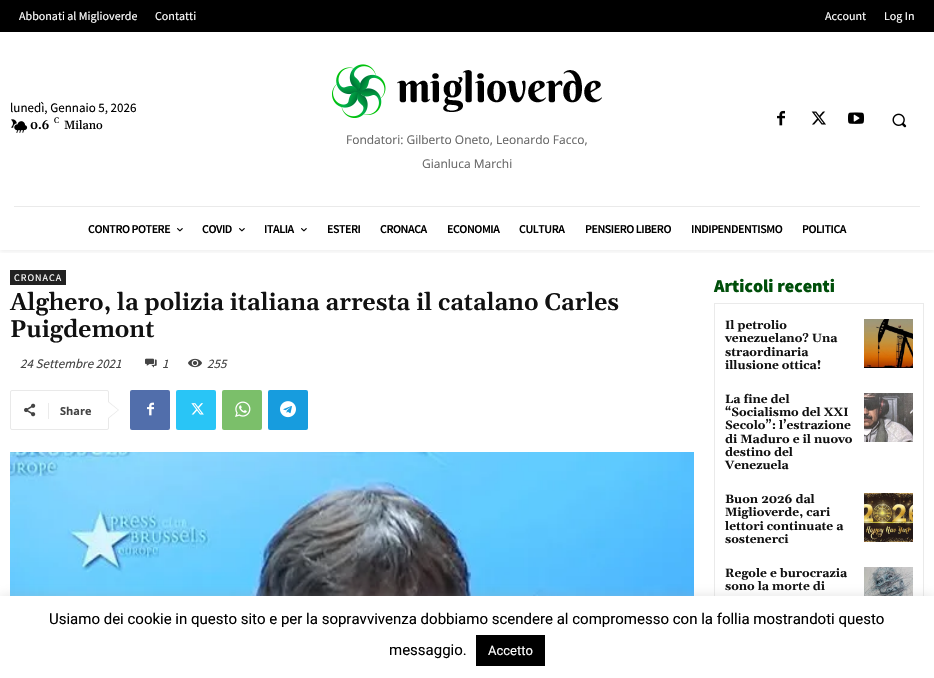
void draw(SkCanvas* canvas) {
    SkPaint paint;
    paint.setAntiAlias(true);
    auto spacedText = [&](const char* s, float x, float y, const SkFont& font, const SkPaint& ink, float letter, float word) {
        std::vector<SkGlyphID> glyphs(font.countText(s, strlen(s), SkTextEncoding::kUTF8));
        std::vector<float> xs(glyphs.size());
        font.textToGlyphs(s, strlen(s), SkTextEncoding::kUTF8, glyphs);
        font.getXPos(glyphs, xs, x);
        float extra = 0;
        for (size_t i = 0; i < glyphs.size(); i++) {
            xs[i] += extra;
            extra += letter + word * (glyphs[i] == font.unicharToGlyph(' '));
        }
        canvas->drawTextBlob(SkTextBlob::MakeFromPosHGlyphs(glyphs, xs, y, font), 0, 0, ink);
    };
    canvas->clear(0xFFFFFFFF);
    paint.setColor(0xFF000000);
    canvas->drawRect(SkRect::MakeXYWH(0, 0, 934, 32), paint);
    SkFont font1(fontMgr->matchFamilyStyle("Source Sans Pro", SkFontStyle::Normal()), 12);
    font1.setSubpixel(true);
    paint.setColor(0xFFFFFFFF);
    canvas->drawString("Abbonati al Miglioverde", 19, 20, font1, paint);
    canvas->drawString("Contatti", 155, 20, font1, paint);
    canvas->drawString("Account", 825, 20, font1, paint);
    canvas->drawString("Log In", 884, 20, font1, paint);
    SkFont font2(fontMgr->matchFamilyStyle("Source Sans Pro", SkFontStyle::Normal()), 13);
    font2.setSubpixel(true);
    paint.setColor(0xFF000000);
    canvas->drawString("lunedì, Gennaio 5, 2026", 10, 112, font2, paint);
    canvas->drawImageRect(SkImages::DeferredFromEncodedData(SkData::MakeFromFileName("img1.png")), SkRect::MakeXYWH(11, 119, 17, 14), SkSamplingOptions());
    SkFont font3(fontMgr->matchFamilyStyle("Gelasio", SkFontStyle(600, SkFontStyle::kNormal_Width, SkFontStyle::kUpright_Slant)), 12);
    font3.setSubpixel(true);
    canvas->drawString("0.6", 30, 129, font3, paint);
    SkFont font4(fontMgr->matchFamilyStyle("Gelasio", SkFontStyle::Normal()), 8);
    font4.setSubpixel(true);
    canvas->drawString("C", 54, 123, font4, paint);
    SkFont font5(fontMgr->matchFamilyStyle("Gelasio", SkFontStyle(500, SkFontStyle::kNormal_Width, SkFontStyle::kUpright_Slant)), 12);
    font5.setSubpixel(true);
    canvas->drawString("Milano", 64, 129, font5, paint);
    canvas->drawImageRect(SkImages::DeferredFromEncodedData(SkData::MakeFromFileName("img2.png")), SkRect::MakeXYWH(777, 110, 8, 16), SkSamplingOptions());
    canvas->drawImageRect(SkImages::DeferredFromEncodedData(SkData::MakeFromFileName("img3.png")), SkRect::MakeXYWH(811, 111, 15, 14), SkSamplingOptions());
    canvas->drawImageRect(SkImages::DeferredFromEncodedData(SkData::MakeFromFileName("img4.png")), SkRect::MakeXYWH(848, 112, 16, 12), SkSamplingOptions());
    canvas->drawImageRect(SkImages::DeferredFromEncodedData(SkData::MakeFromFileName("img5.png")), SkRect::MakeXYWH(892, 113, 15, 15), SkSamplingOptions());
    canvas->drawImageRect(SkImages::DeferredFromEncodedData(SkData::MakeFromFileName("img6.png")), SkRect::MakeXYWH(332, 64, 270, 54), SkSamplingOptions());
    SkFont font6(fontMgr->matchFamilyStyle("Open Sans", SkFontStyle::Normal()), 12);
    font6.setSubpixel(true);
    paint.setColor(0xFF666666);
    canvas->drawString("Fondatori: Gilberto Oneto, Leonardo Facco,", 346, 144, font6, paint);
    canvas->drawString("Gianluca Marchi", 422, 168, font6, paint);
    paint.setColor(0xFFEAEAEA);
    canvas->drawRect(SkRect::MakeXYWH(14, 206, 906, 1), paint);
    canvas->save();
    canvas->clipRect(SkRect::MakeXYWH(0, 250, 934, 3));
    paint.setColor(0x0F000000);
    paint.setMaskFilter(SkMaskFilter::MakeBlur(kNormal_SkBlurStyle, 2));
    canvas->drawRect(SkRect::MakeXYWH(0, 178, 934, 74), paint);
    paint.setMaskFilter(nullptr);
    canvas->restore();
    SkFont font7(fontMgr->matchFamilyStyle("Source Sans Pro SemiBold", SkFontStyle(600, SkFontStyle::kNormal_Width, SkFontStyle::kUpright_Slant)), 12);
    font7.setSubpixel(true);
    paint.setColor(0xFF000000);
    spacedText("CONTRO POTERE", 88, 233, font7, paint, -0.5f, 0);
    canvas->drawImageRect(SkImages::DeferredFromEncodedData(SkData::MakeFromFileName("img7.png")), SkRect::MakeXYWH(177, 228, 6, 4), SkSamplingOptions());
    spacedText("COVID", 202, 233, font7, paint, -0.5f, 0);
    canvas->drawImageRect(SkImages::DeferredFromEncodedData(SkData::MakeFromFileName("img7.png")), SkRect::MakeXYWH(239, 228, 6, 4), SkSamplingOptions());
    spacedText("ITALIA", 264, 233, font7, paint, -0.5f, 0);
    canvas->drawImageRect(SkImages::DeferredFromEncodedData(SkData::MakeFromFileName("img7.png")), SkRect::MakeXYWH(301, 228, 6, 4), SkSamplingOptions());
    spacedText("ESTERI", 327, 233, font7, paint, -0.5f, 0);
    spacedText("CRONACA", 380, 233, font7, paint, -0.5f, 0);
    spacedText("ECONOMIA", 447, 233, font7, paint, -0.5f, 0);
    spacedText("CULTURA", 519, 233, font7, paint, -0.5f, 0);
    spacedText("PENSIERO LIBERO", 585, 233, font7, paint, -0.5f, 0);
    spacedText("INDIPENDENTISMO", 691, 233, font7, paint, -0.5f, 0);
    spacedText("POLITICA", 802, 233, font7, paint, -0.5f, 0);
    paint.setColor(0xFF222222);
    canvas->drawRect(SkRect::MakeXYWH(10, 270, 56, 15), paint);
    SkFont font8(fontMgr->matchFamilyStyle("Source Sans Pro", SkFontStyle::Normal()), 10);
    font8.setSubpixel(true);
    paint.setColor(0xFFFFFFFF);
    spacedText("CRONACA", 14, 281, font8, paint, 1, 0);
    SkFont font9(fontMgr->matchFamilyStyle("Gelasio", SkFontStyle(600, SkFontStyle::kNormal_Width, SkFontStyle::kUpright_Slant)), 24);
    font9.setSubpixel(true);
    paint.setColor(0xFF111111);
    canvas->drawString("Alghero, la polizia italiana arresta il catalano Carles", 10, 310, font9, paint);
    canvas->drawString("Puigdemont", 10, 337, font9, paint);
    SkFont font10(fontMgr->matchFamilyStyle("Source Sans Pro", SkFontStyle::Italic()), 13);
    font10.setSubpixel(true);
    paint.setColor(0xFF444444);
    canvas->drawString("24 Settembre 2021", 20, 368, font10, paint);
    canvas->drawImageRect(SkImages::DeferredFromEncodedData(SkData::MakeFromFileName("img8.png")), SkRect::MakeXYWH(145, 358, 12, 10), SkSamplingOptions());
    canvas->drawString("1", 162, 368, font10, paint);
    canvas->drawImageRect(SkImages::DeferredFromEncodedData(SkData::MakeFromFileName("img9.png")), SkRect::MakeXYWH(188, 358, 14, 10), SkSamplingOptions());
    canvas->drawString("255", 207, 368, font10, paint);
    paint.setStyle(SkPaint::kStroke_Style);
    paint.setStrokeWidth(1);
    paint.setColor(0xFFE9E9E9);
    canvas->drawRoundRect(SkRect::MakeXYWH(10.5f, 390.5f, 98, 39), 1.5f, 1.5f, paint);
    paint.setStyle(SkPaint::kFill_Style);
    canvas->drawPath(SkPathBuilder().moveTo(108, 419).lineTo(108, 401).lineTo(119, 410).close().detach(), paint);
    canvas->drawImageRect(SkImages::DeferredFromEncodedData(SkData::MakeFromFileName("img10.png")), SkRect::MakeXYWH(24, 403, 12, 14), SkSamplingOptions());
    paint.setColor(0xFFEBEBEB);
    canvas->drawRect(SkRect::MakeXYWH(48, 403, 1, 16), paint);
    SkFont font11(fontMgr->matchFamilyStyle("Open Sans", SkFontStyle::Bold()), 11);
    font11.setSubpixel(true);
    paint.setColor(0xFF444444);
    canvas->drawString("Share", 60, 415, font11, paint);
    paint.setColor(0xFFFFFFFF);
    canvas->drawPath(SkPathBuilder().moveTo(108, 418).lineTo(108, 402).lineTo(118, 410).close().detach(), paint);
    paint.setColor(0xFF516EAB);
    canvas->drawRoundRect(SkRect::MakeXYWH(130, 390, 40, 40), 2, 2, paint);
    canvas->drawImageRect(SkImages::DeferredFromEncodedData(SkData::MakeFromFileName("img11.png")), SkRect::MakeXYWH(147, 402, 7, 14), SkSamplingOptions());
    paint.setColor(0xFF29C5F6);
    canvas->drawRoundRect(SkRect::MakeXYWH(176, 390, 40, 40), 2, 2, paint);
    canvas->drawImageRect(SkImages::DeferredFromEncodedData(SkData::MakeFromFileName("img12.png")), SkRect::MakeXYWH(191, 403, 13, 12), SkSamplingOptions());
    paint.setColor(0xFF7BBF6A);
    canvas->drawRoundRect(SkRect::MakeXYWH(222, 390, 40, 40), 2, 2, paint);
    canvas->drawImageRect(SkImages::DeferredFromEncodedData(SkData::MakeFromFileName("img13.png")), SkRect::MakeXYWH(235, 401, 16, 16), SkSamplingOptions());
    paint.setColor(0xFF179CDE);
    canvas->drawRoundRect(SkRect::MakeXYWH(268, 390, 40, 40), 2, 2, paint);
    canvas->drawImageRect(SkImages::DeferredFromEncodedData(SkData::MakeFromFileName("img14.png")), SkRect::MakeXYWH(280, 401, 16, 17), SkSamplingOptions());
    canvas->drawImageRect(SkImages::DeferredFromEncodedData(SkData::MakeFromFileName("img15.png")), SkRect::MakeXYWH(10, 452, 684, 144), SkSamplingOptions());
    SkFont font12(fontMgr->matchFamilyStyle("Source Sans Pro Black", SkFontStyle(900, SkFontStyle::kNormal_Width, SkFontStyle::kUpright_Slant)), 18);
    font12.setSubpixel(true);
    paint.setColor(0xFF004F0A);
    canvas->drawString("Articoli recenti", 714, 292, font12, paint);
    paint.setStyle(SkPaint::kStroke_Style);
    paint.setColor(0xFFEAEAEA);
    canvas->drawRect(SkRect::MakeXYWH(714.5f, 303.5f, 209, 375), paint);
    SkFont font13(fontMgr->matchFamilyStyle("Gelasio", SkFontStyle::Bold()), 12);
    font13.setSubpixel(true);
    paint.setStyle(SkPaint::kFill_Style);
    paint.setColor(0xFF111111);
    canvas->drawString("Il petrolio", 725, 329, font13, paint);
    canvas->drawString("venezuelano? Una", 725, 342, font13, paint);
    canvas->drawString("straordinaria", 725, 356, font13, paint);
    canvas->drawString("illusione ottica!", 725, 369, font13, paint);
    canvas->drawImageRect(SkImages::DeferredFromEncodedData(SkData::MakeFromFileName("img16.png")), SkRect::MakeXYWH(864, 319, 49, 49), SkSamplingOptions());
    canvas->drawString("La fine del", 725, 403, font13, paint);
    canvas->drawString("“Socialismo del XXI", 725, 416, font13, paint);
    canvas->drawString("Secolo”: l’estrazione", 725, 429, font13, paint);
    canvas->drawString("di Maduro e il nuovo", 725, 443, font13, paint);
    canvas->drawString("destino del", 725, 456, font13, paint);
    canvas->drawString("Venezuela", 725, 469, font13, paint);
    canvas->drawImageRect(SkImages::DeferredFromEncodedData(SkData::MakeFromFileName("img17.png")), SkRect::MakeXYWH(864, 393, 49, 49), SkSamplingOptions());
    canvas->drawString("Buon 2026 dal", 725, 503, font13, paint);
    canvas->drawString("Miglioverde, cari", 725, 516, font13, paint);
    canvas->drawString("lettori continuate a", 725, 530, font13, paint);
    canvas->drawString("sostenerci", 725, 543, font13, paint);
    canvas->drawImageRect(SkImages::DeferredFromEncodedData(SkData::MakeFromFileName("img18.png")), SkRect::MakeXYWH(864, 493, 49, 49), SkSamplingOptions());
    canvas->drawString("Regole e burocrazia", 725, 577, font13, paint);
    canvas->drawString("sono la morte di", 725, 590, font13, paint);
    canvas->drawImageRect(SkImages::DeferredFromEncodedData(SkData::MakeFromFileName("img19.png")), SkRect::MakeXYWH(864, 567, 49, 29), SkSamplingOptions());
    paint.setColor(0x4DACABAB);
    paint.setMaskFilter(SkMaskFilter::MakeBlur(kNormal_SkBlurStyle, 5));
    canvas->drawRect(SkRect::MakeXYWH(0, 595, 934, 82), paint);
    paint.setMaskFilter(nullptr);
    paint.setColor(0xFFFFFFFF);
    canvas->drawRect(SkRect::MakeXYWH(0, 596, 934, 82), paint);
    SkFont font14(fontMgr->matchFamilyStyle("Roboto", SkFontStyle::Normal()), 15);
    font14.setSubpixel(true);
    paint.setColor(0xFF000000);
    canvas->drawString("Usiamo dei cookie in questo sito e per la sopravvivenza dobbiamo scendere al compromesso con la follia mostrandoti questo", 49, 624, font14, paint);
    canvas->drawString("messaggio.", 389, 655, font14, paint);
    canvas->drawRect(SkRect::MakeXYWH(476, 635, 69, 31), paint);
    SkFont font15(fontMgr->matchFamilyStyle("Roboto", SkFontStyle::Normal()), 13);
    font15.setSubpixel(true);
    paint.setColor(0xFFFFFFFF);
    canvas->drawString("Accetto", 488, 655, font15, paint);
}
